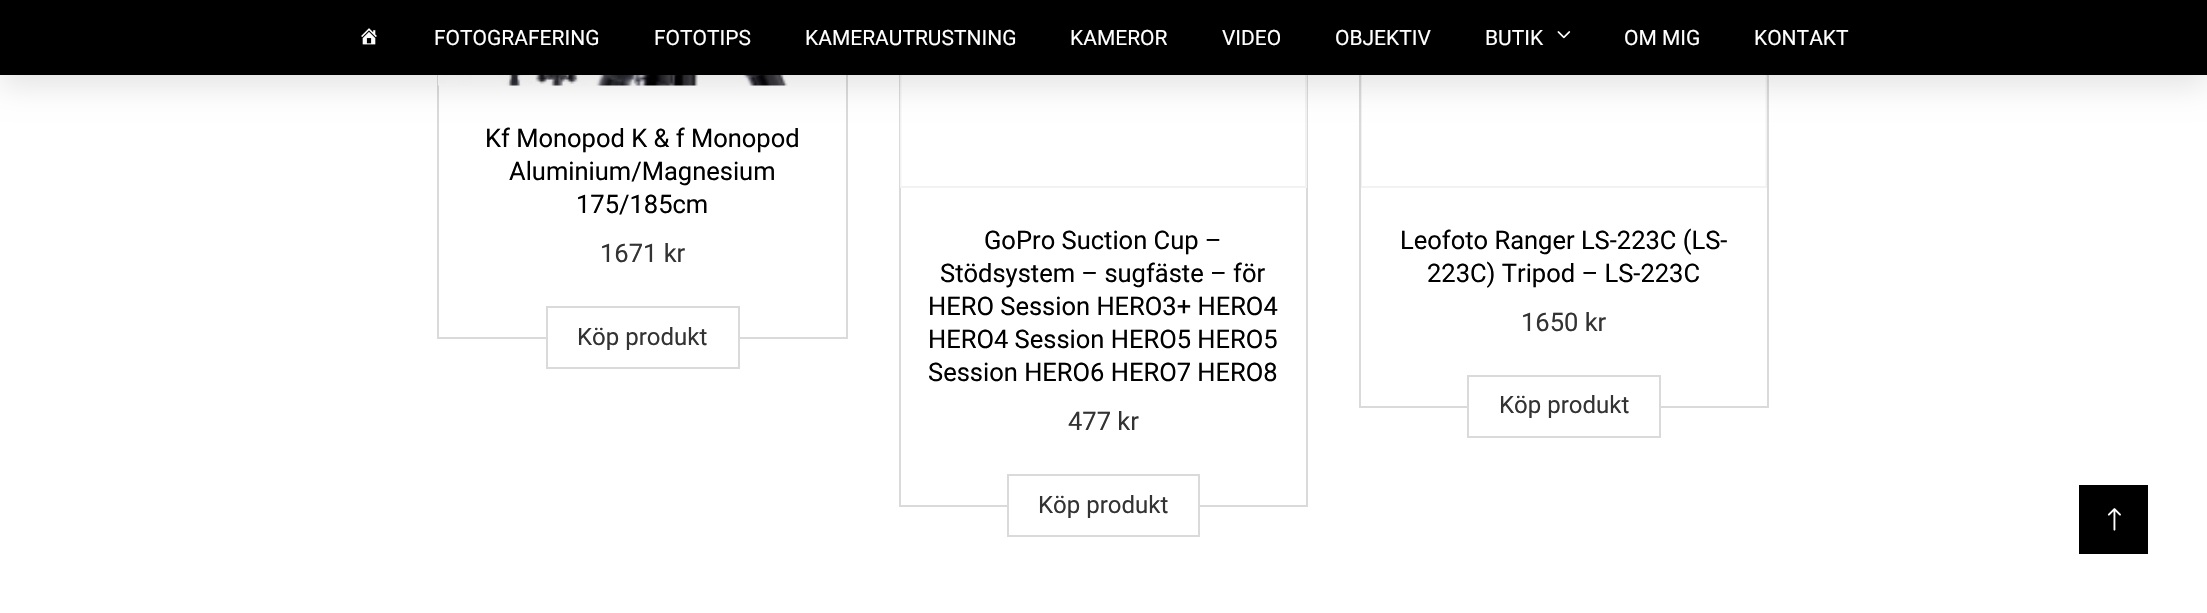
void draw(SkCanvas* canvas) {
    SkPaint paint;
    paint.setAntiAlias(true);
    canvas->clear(0xFFFFFFFF);
    paint.setStyle(SkPaint::kStroke_Style);
    paint.setStrokeWidth(2);
    paint.setColor(0xFFDADADA);
    canvas->drawRect(SkRect::MakeXYWH(438, -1, 409, 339), paint);
    canvas->drawImageRect(SkImages::DeferredFromEncodedData(SkData::MakeFromFileName("img3.png")), SkRect::MakeXYWH(438, 75, 350, 11), SkSamplingOptions());
    canvas->drawRect(SkRect::MakeXYWH(900, -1, 407, 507), paint);
    paint.setColor(0xFFF2F2F2);
    canvas->drawRect(SkRect::MakeXYWH(901, -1, 405, 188), paint);
    canvas->drawImageRect(SkImages::DeferredFromEncodedData(SkData::MakeFromFileName("img4.png")), SkRect::MakeXYWH(901, 75, 276, 111), SkSamplingOptions());
    paint.setColor(0xFFDADADA);
    canvas->drawRect(SkRect::MakeXYWH(1360, -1, 408, 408), paint);
    paint.setColor(0xFFF2F2F2);
    canvas->drawRect(SkRect::MakeXYWH(1362, -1, 404, 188), paint);
    canvas->drawImageRect(SkImages::DeferredFromEncodedData(SkData::MakeFromFileName("img5.png")), SkRect::MakeXYWH(1362, 75, 404, 111), SkSamplingOptions());
    paint.setStyle(SkPaint::kFill_Style);
    paint.setColor(0x1A000000);
    paint.setMaskFilter(SkMaskFilter::MakeBlur(kNormal_SkBlurStyle, 15));
    canvas->drawRect(SkRect::MakeXYWH(0, 12, 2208, 75), paint);
    paint.setMaskFilter(nullptr);
    paint.setColor(0xFF000000);
    canvas->drawRect(SkRect::MakeXYWH(0, 0, 2207, 75), paint);
    canvas->drawImageRect(SkImages::DeferredFromEncodedData(SkData::MakeFromFileName("img1.png")), SkRect::MakeXYWH(361, 28, 16, 17), SkSamplingOptions());
    SkFont font1(fontMgr->matchFamilyStyle("Roboto", SkFontStyle::Normal()), 21);
    font1.setSubpixel(true);
    paint.setColor(0xFFFFFFFF);
    canvas->drawString("FOTOGRAFERING", 434, 45, font1, paint);
    canvas->drawString("FOTOTIPS", 654, 45, font1, paint);
    canvas->drawString("KAMERAUTRUSTNING", 805, 45, font1, paint);
    canvas->drawString("KAMEROR", 1070, 45, font1, paint);
    canvas->drawString("VIDEO", 1222, 45, font1, paint);
    canvas->drawString("OBJEKTIV", 1335, 45, font1, paint);
    canvas->drawString("BUTIK", 1485, 45, font1, paint);
    canvas->drawImageRect(SkImages::DeferredFromEncodedData(SkData::MakeFromFileName("img2.png")), SkRect::MakeXYWH(1557, 31, 14, 8), SkSamplingOptions());
    canvas->drawString("OM MIG", 1624, 45, font1, paint);
    canvas->drawString("KONTAKT", 1754, 45, font1, paint);
    SkFont font2(fontMgr->matchFamilyStyle("Roboto", SkFontStyle::Normal()), 25.5f);
    font2.setSubpixel(true);
    paint.setColor(0xFF000000);
    canvas->drawString("Kf Monopod K & f Monopod", 485, 147, font2, paint);
    canvas->drawString("Aluminium/Magnesium", 509, 180, font2, paint);
    canvas->drawString("175/185cm", 576, 213, font2, paint);
    paint.setColor(0xFF333333);
    canvas->drawString("1671 kr", 600, 262, font2, paint);
    paint.setColor(0xFFFFFFFF);
    canvas->drawRect(SkRect::MakeXYWH(548, 337, 190, 2), paint);
    paint.setStyle(SkPaint::kStroke_Style);
    paint.setColor(0xFFDADADA);
    canvas->drawRect(SkRect::MakeXYWH(547, 307, 192, 61), paint);
    SkFont font3(fontMgr->matchFamilyStyle("Roboto", SkFontStyle::Normal()), 24);
    font3.setSubpixel(true);
    paint.setStyle(SkPaint::kFill_Style);
    paint.setColor(0xFF333333);
    canvas->drawString("Köp produkt", 577, 345, font3, paint);
    paint.setColor(0xFF000000);
    canvas->drawString("GoPro Suction Cup –", 984, 249, font2, paint);
    canvas->drawString("Stödsystem – sugfäste – för", 940, 282, font2, paint);
    canvas->drawString("HERO Session HERO3+ HERO4", 928, 315, font2, paint);
    canvas->drawString("HERO4 Session HERO5 HERO5", 928, 348, font2, paint);
    canvas->drawString("Session HERO6 HERO7 HERO8", 928, 381, font2, paint);
    paint.setColor(0xFF333333);
    canvas->drawString("477 kr", 1068, 430, font2, paint);
    paint.setColor(0xFFFFFFFF);
    canvas->drawRect(SkRect::MakeXYWH(1009, 505, 189, 2), paint);
    paint.setStyle(SkPaint::kStroke_Style);
    paint.setColor(0xFFDADADA);
    canvas->drawRect(SkRect::MakeXYWH(1008, 475, 191, 61), paint);
    paint.setStyle(SkPaint::kFill_Style);
    paint.setColor(0xFF333333);
    canvas->drawString("Köp produkt", 1038, 513, font3, paint);
    paint.setColor(0xFF000000);
    canvas->drawString("Leofoto Ranger LS-223C (LS-", 1400, 249, font2, paint);
    canvas->drawString("223C) Tripod – LS-223C", 1427, 282, font2, paint);
    paint.setColor(0xFF333333);
    canvas->drawString("1650 kr", 1521, 331, font2, paint);
    paint.setColor(0xFFFFFFFF);
    canvas->drawRect(SkRect::MakeXYWH(1469, 406, 190, 2), paint);
    paint.setStyle(SkPaint::kStroke_Style);
    paint.setColor(0xFFDADADA);
    canvas->drawRect(SkRect::MakeXYWH(1468, 376, 192, 61), paint);
    paint.setStyle(SkPaint::kFill_Style);
    paint.setColor(0xFF333333);
    canvas->drawString("Köp produkt", 1499, 413, font3, paint);
    paint.setColor(0xFF000000);
    canvas->drawRect(SkRect::MakeXYWH(2079, 485, 69, 69), paint);
    canvas->drawImageRect(SkImages::DeferredFromEncodedData(SkData::MakeFromFileName("img6.png")), SkRect::MakeXYWH(2107, 508, 14, 23), SkSamplingOptions());
}
